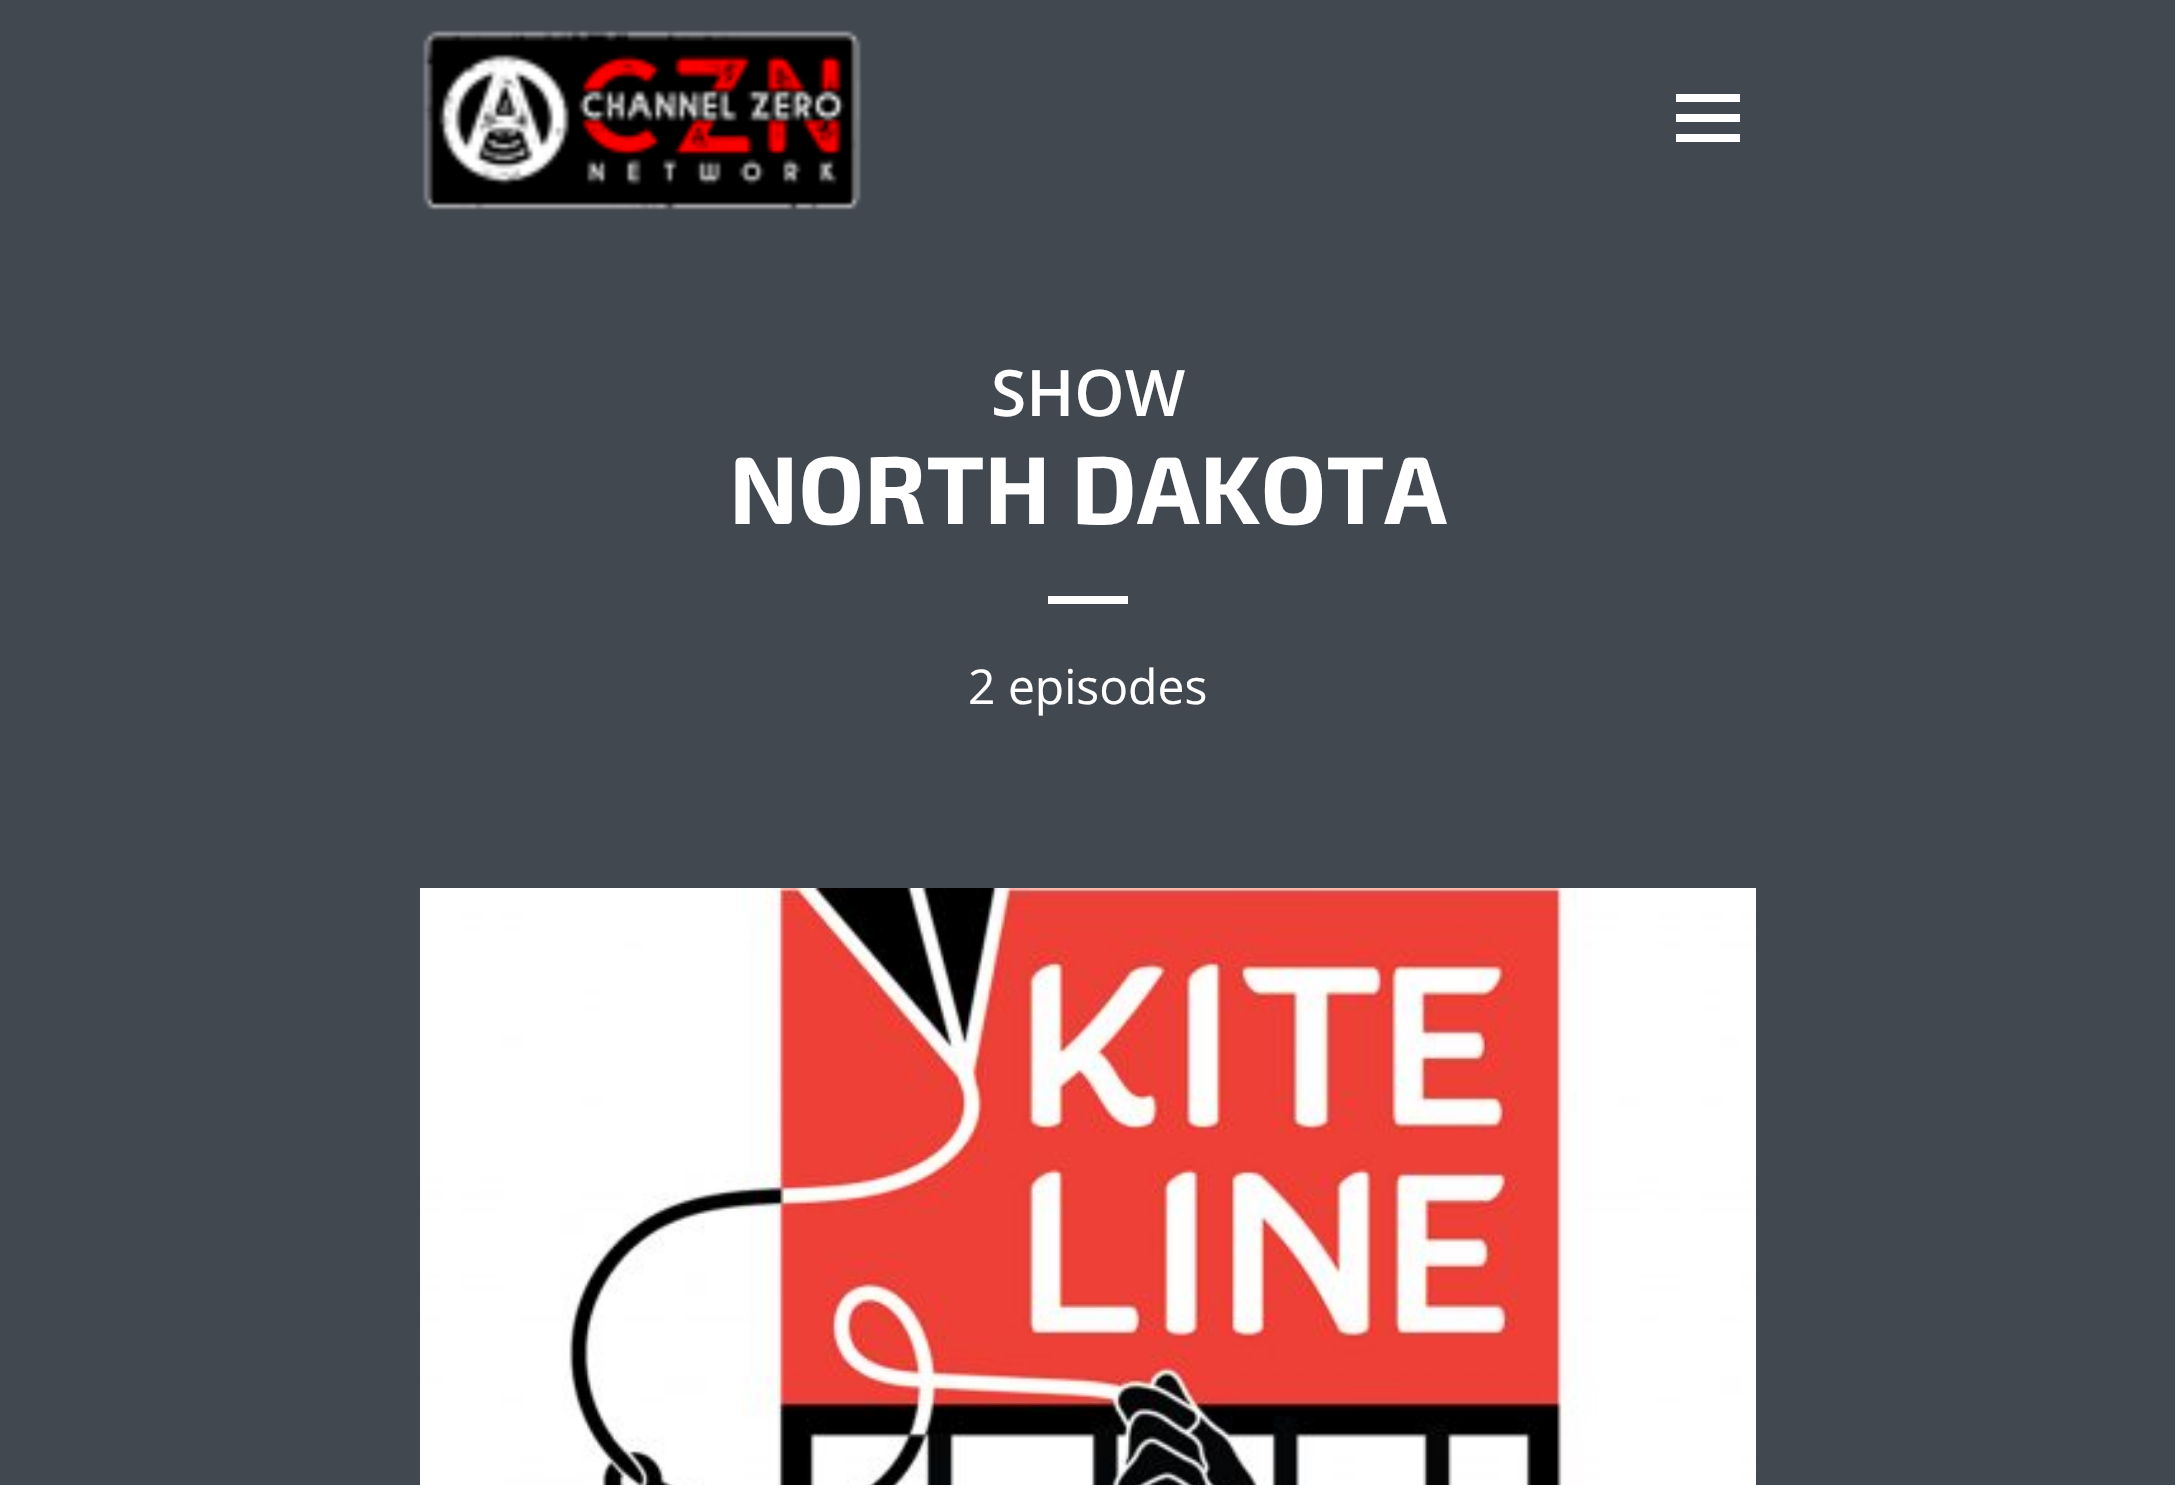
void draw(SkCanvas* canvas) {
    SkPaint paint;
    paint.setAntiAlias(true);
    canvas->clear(0xFF424850);
    canvas->drawImageRect(SkImages::DeferredFromEncodedData(SkData::MakeFromFileName("img1.png")), SkRect::MakeXYWH(422, 30, 440, 180), SkSamplingOptions());
    paint.setColor(0xFFFFFFFF);
    canvas->drawPath(SkPathBuilder().moveTo(1676, 122).lineTo(1676, 114).lineTo(1740, 114).lineTo(1740, 122).close().moveTo(1676, 142).lineTo(1676, 134).lineTo(1740, 134).lineTo(1740, 142).close().moveTo(1676, 102).lineTo(1676, 94).lineTo(1740, 94).lineTo(1740, 102).close().detach(), paint);
    SkFont font1(fontMgr->matchFamilyStyle("Open Sans", SkFontStyle(600, SkFontStyle::kNormal_Width, SkFontStyle::kUpright_Slant)), 64);
    font1.setSubpixel(true);
    canvas->drawString("SHOW", 991, 416, font1, paint);
    SkFont font2(fontMgr->matchFamilyStyle("Exo 2", SkFontStyle::Bold()), 96);
    font2.setSubpixel(true);
    canvas->drawString("NORTH DAKOTA", 729, 524, font2, paint);
    canvas->drawRect(SkRect::MakeXYWH(1048, 596, 80, 8), paint);
    SkFont font3(fontMgr->matchFamilyStyle("Open Sans", SkFontStyle::Normal()), 48);
    font3.setSubpixel(true);
    canvas->drawString("2 episodes", 968, 704, font3, paint);
    canvas->drawImageRect(SkImages::DeferredFromEncodedData(SkData::MakeFromFileName("img2.png")), SkRect::MakeXYWH(420, 888, 1336, 597), SkSamplingOptions());
}
